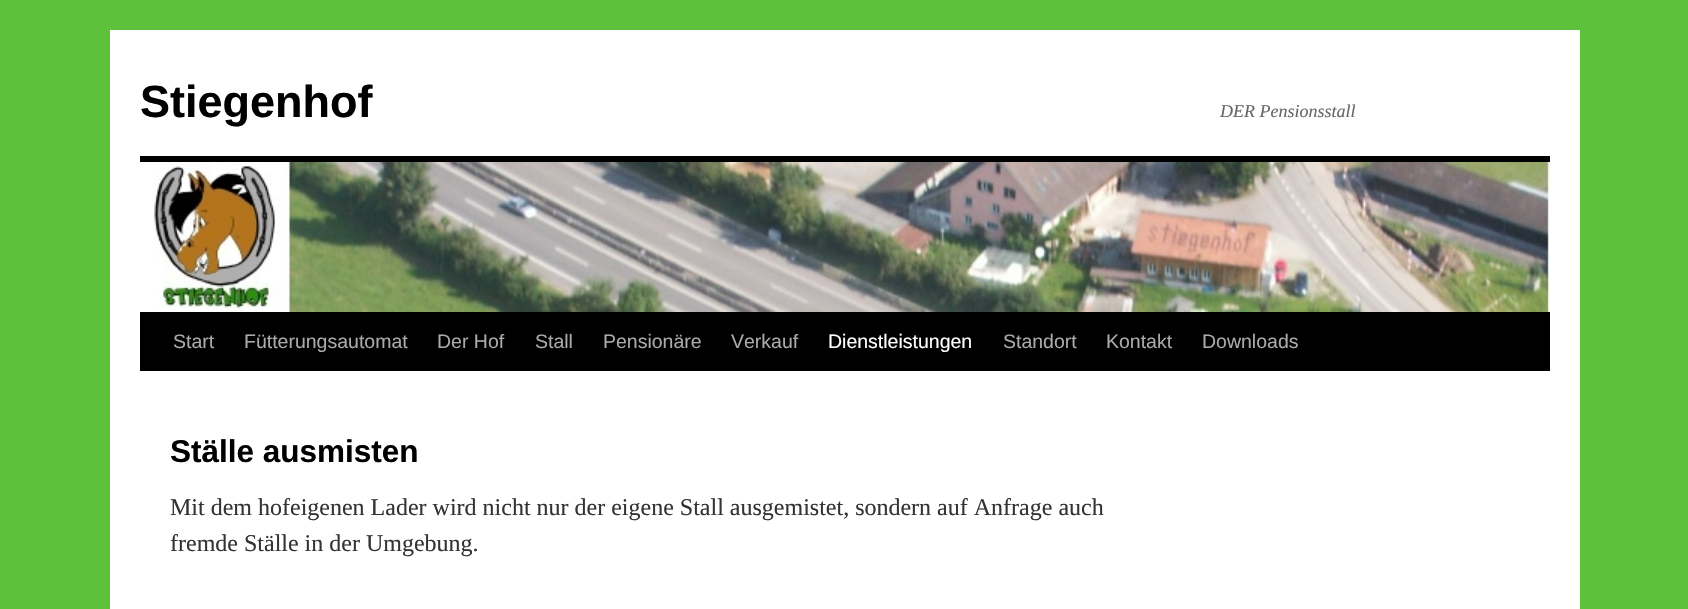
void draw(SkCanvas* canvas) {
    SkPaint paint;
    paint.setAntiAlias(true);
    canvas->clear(0xFF5DC13C);
    paint.setColor(0xFFFFFFFF);
    canvas->drawRect(SkRect::MakeXYWH(110, 30, 1470, 579), paint);
    SkFont font1(fontMgr->matchFamilyStyle("Liberation Sans", SkFontStyle::Bold()), 45);
    font1.setSubpixel(true);
    paint.setColor(0xFF000000);
    canvas->drawString("Stiegenhof", 140, 117, font1, paint);
    SkFont font2(fontMgr->matchFamilyStyle("Liberation Serif", SkFontStyle::Italic()), 18);
    font2.setSubpixel(true);
    paint.setColor(0xFF666666);
    canvas->drawString("DER Pensionsstall", 1220, 117, font2, paint);
    paint.setColor(0xFF000000);
    canvas->drawRect(SkRect::MakeXYWH(140, 156, 1410, 6), paint);
    canvas->drawRect(SkRect::MakeXYWH(140, 312, 1410, 59), paint);
    canvas->drawImageRect(SkImages::DeferredFromEncodedData(SkData::MakeFromFileName("img1.png")), SkRect::MakeXYWH(153, 162, 1397, 150), SkSamplingOptions());
    SkFont font3(fontMgr->matchFamilyStyle("Liberation Sans", SkFontStyle::Normal()), 19.5f);
    font3.setSubpixel(true);
    paint.setColor(0xFFAAAAAA);
    canvas->drawString("Start", 173, 348, font3, paint);
    canvas->drawString("Fütterungsautomat", 244, 348, font3, paint);
    canvas->drawString("Der Hof", 437, 348, font3, paint);
    canvas->drawString("Stall", 535, 348, font3, paint);
    canvas->drawString("Pensionäre", 603, 348, font3, paint);
    canvas->drawString("Verkauf", 731, 348, font3, paint);
    paint.setColor(0xFFFFFFFF);
    canvas->drawString("Dienstleistungen", 828, 348, font3, paint);
    paint.setColor(0xFFAAAAAA);
    canvas->drawString("Standort", 1003, 348, font3, paint);
    canvas->drawString("Kontakt", 1106, 348, font3, paint);
    canvas->drawString("Downloads", 1202, 348, font3, paint);
    SkFont font4(fontMgr->matchFamilyStyle("Liberation Sans", SkFontStyle::Bold()), 31.5f);
    font4.setSubpixel(true);
    paint.setColor(0xFF000000);
    canvas->drawString("Ställe ausmisten", 170, 462, font4, paint);
    SkFont font5(fontMgr->matchFamilyStyle("Liberation Serif", SkFontStyle::Normal()), 24);
    font5.setSubpixel(true);
    paint.setColor(0xFF333333);
    canvas->drawString("Mit dem hofeigenen Lader wird nicht nur der eigene Stall ausgemistet, sondern auf Anfrage auch", 170, 515, font5, paint);
    canvas->drawString("fremde Ställe in der Umgebung.", 170, 551, font5, paint);
}
